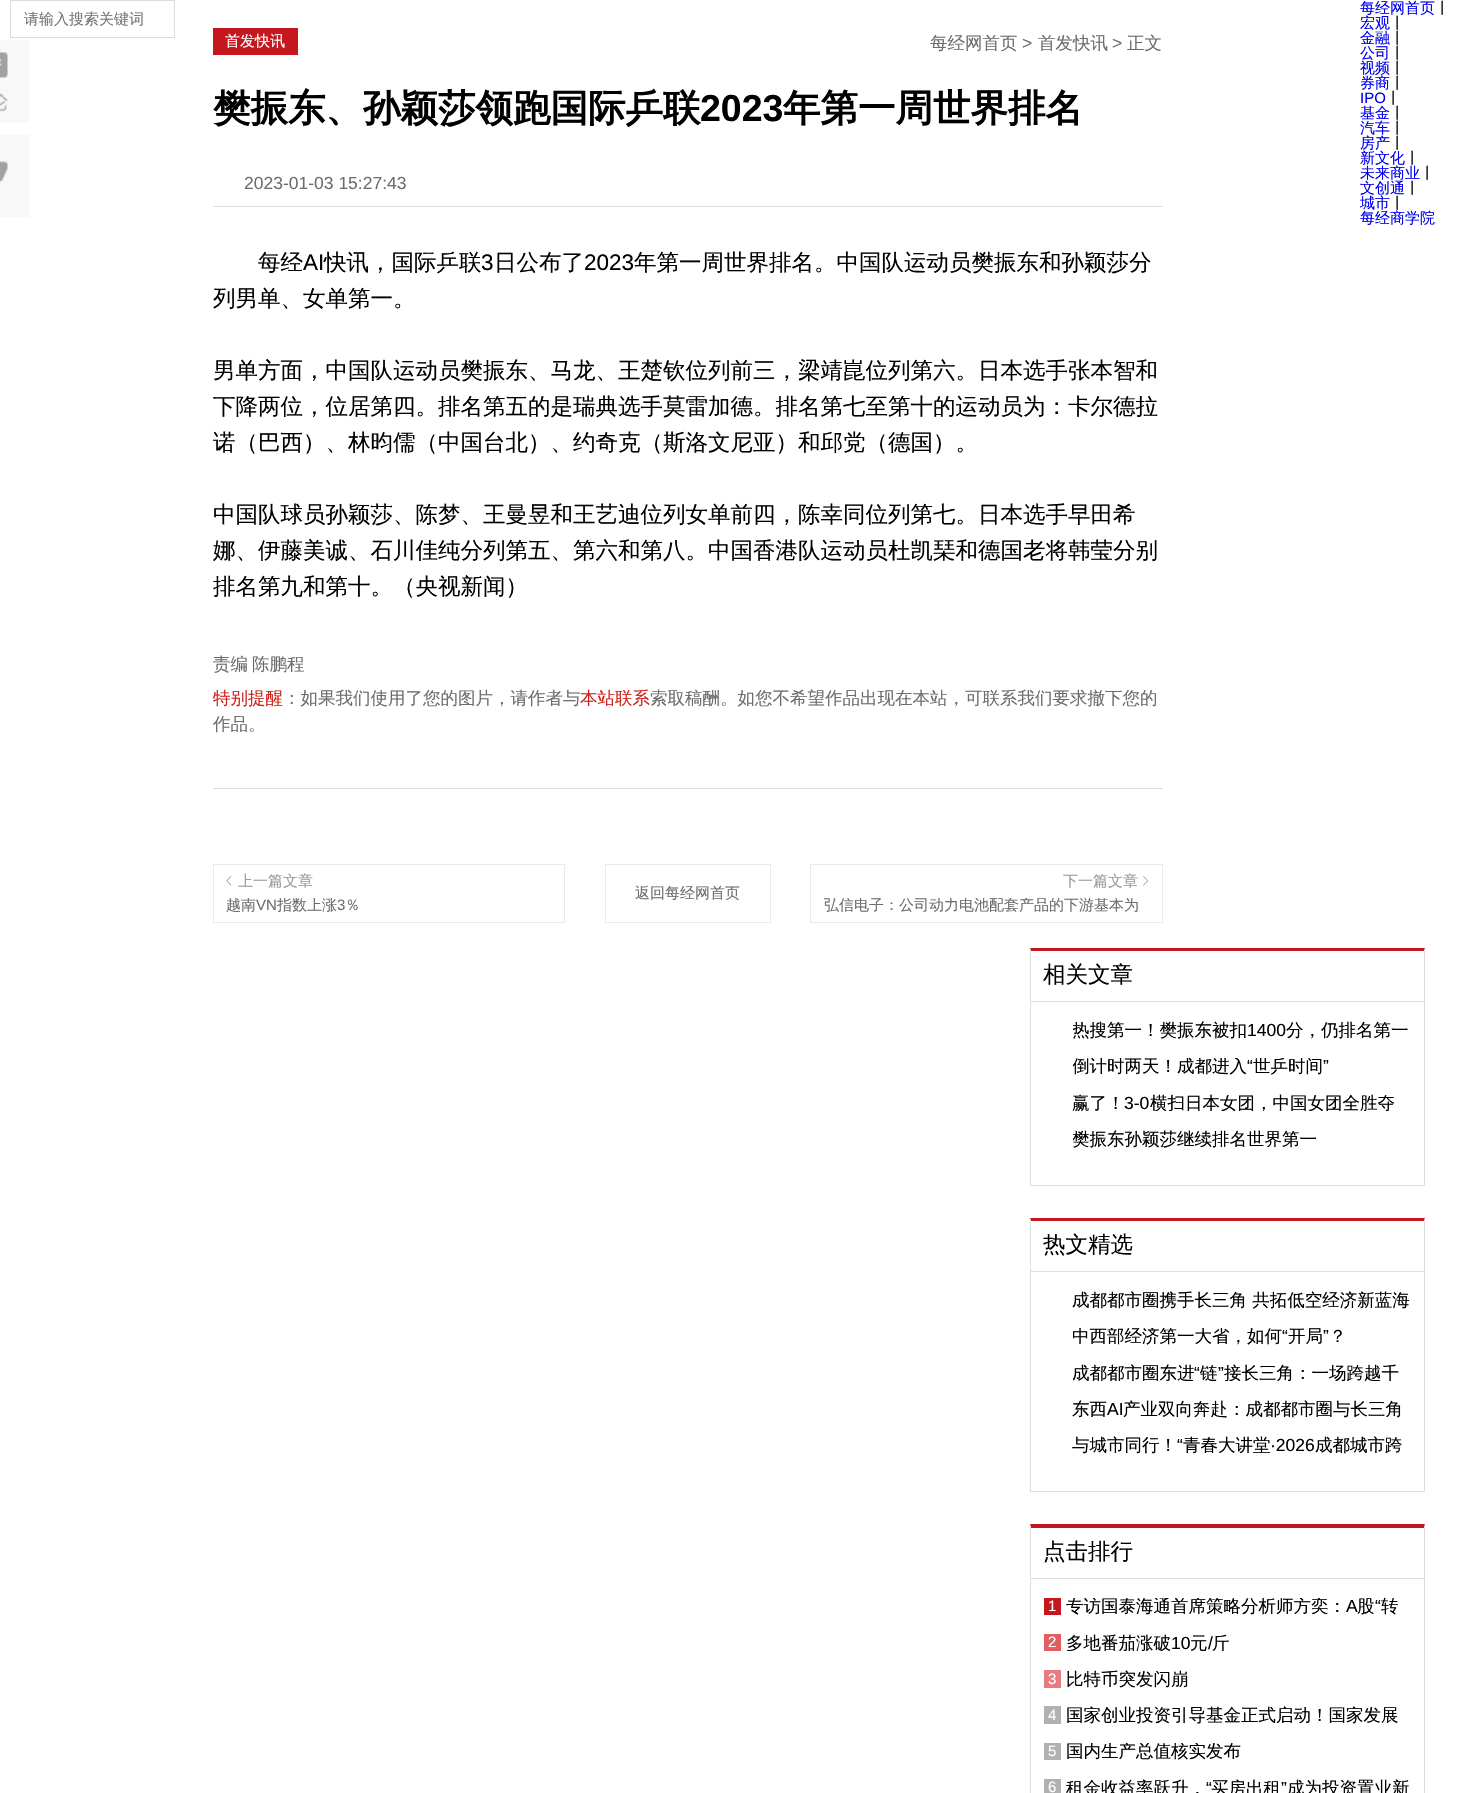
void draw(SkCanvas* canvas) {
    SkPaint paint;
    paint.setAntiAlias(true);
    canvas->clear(0xFFFFFFFF);
    paint.setStyle(SkPaint::kStroke_Style);
    paint.setStrokeWidth(1);
    paint.setColor(0xFFDCDCDC);
    canvas->drawRect(SkRect::MakeXYWH(10.5f, 0.5f, 164, 37), paint);
    SkFont font1(fontMgr->matchFamilyStyle("WenQuanYi Zen Hei", SkFontStyle(500, SkFontStyle::kNormal_Width, SkFontStyle::kUpright_Slant)), 15);
    font1.setSubpixel(true);
    paint.setStyle(SkPaint::kFill_Style);
    paint.setColor(0xFF757575);
    canvas->drawString("请输入搜索关键词", 24, 24, font1, paint);
    paint.setColor(0xFF0000EE);
    canvas->drawString("每经网首页", 1360, 13, font1, paint);
    paint.setColor(0xFF000000);
    canvas->drawString("丨", 1435, 13, font1, paint);
    paint.setColor(0xFF0000EE);
    canvas->drawString("宏观", 1360, 28, font1, paint);
    paint.setColor(0xFF000000);
    canvas->drawString("丨", 1390, 28, font1, paint);
    paint.setColor(0xFF0000EE);
    canvas->drawString("金融", 1360, 43, font1, paint);
    paint.setColor(0xFF000000);
    canvas->drawString("丨", 1390, 43, font1, paint);
    paint.setColor(0xFF0000EE);
    canvas->drawString("公司", 1360, 58, font1, paint);
    paint.setColor(0xFF000000);
    canvas->drawString("丨", 1390, 58, font1, paint);
    paint.setColor(0xFF0000EE);
    canvas->drawString("视频", 1360, 73, font1, paint);
    paint.setColor(0xFF000000);
    canvas->drawString("丨", 1390, 73, font1, paint);
    paint.setColor(0xFF0000EE);
    canvas->drawString("券商", 1360, 88, font1, paint);
    paint.setColor(0xFF000000);
    canvas->drawString("丨", 1390, 88, font1, paint);
    SkFont font2(fontMgr->matchFamilyStyle("Liberation Sans", SkFontStyle::Normal()), 15);
    font2.setSubpixel(true);
    paint.setColor(0xFF0000EE);
    canvas->drawString("IPO", 1360, 103, font2, paint);
    paint.setColor(0xFF000000);
    canvas->drawString("丨", 1386, 103, font1, paint);
    paint.setColor(0xFF0000EE);
    canvas->drawString("基金", 1360, 118, font1, paint);
    paint.setColor(0xFF000000);
    canvas->drawString("丨", 1390, 118, font1, paint);
    paint.setColor(0xFF0000EE);
    canvas->drawString("汽车", 1360, 133, font1, paint);
    paint.setColor(0xFF000000);
    canvas->drawString("丨", 1390, 133, font1, paint);
    paint.setColor(0xFF0000EE);
    canvas->drawString("房产", 1360, 148, font1, paint);
    paint.setColor(0xFF000000);
    canvas->drawString("丨", 1390, 148, font1, paint);
    paint.setColor(0xFF0000EE);
    canvas->drawString("新文化", 1360, 163, font1, paint);
    paint.setColor(0xFF000000);
    canvas->drawString("丨", 1405, 163, font1, paint);
    paint.setColor(0xFF0000EE);
    canvas->drawString("未来商业", 1360, 178, font1, paint);
    paint.setColor(0xFF000000);
    canvas->drawString("丨", 1420, 178, font1, paint);
    paint.setColor(0xFF0000EE);
    canvas->drawString("文创通", 1360, 193, font1, paint);
    paint.setColor(0xFF000000);
    canvas->drawString("丨", 1405, 193, font1, paint);
    paint.setColor(0xFF0000EE);
    canvas->drawString("城市", 1360, 208, font1, paint);
    paint.setColor(0xFF000000);
    canvas->drawString("丨", 1390, 208, font1, paint);
    paint.setColor(0xFF0000EE);
    canvas->drawString("每经商学院", 1360, 223, font1, paint);
    canvas->drawImageRect(SkImages::DeferredFromEncodedData(SkData::MakeFromFileName("img1.png")), SkRect::MakeXYWH(0, 40, 30, 83), SkSamplingOptions());
    canvas->drawImageRect(SkImages::DeferredFromEncodedData(SkData::MakeFromFileName("img2.png")), SkRect::MakeXYWH(0, 135, 30, 83), SkSamplingOptions());
    paint.setColor(0xFFC5171E);
    canvas->drawRect(SkRect::MakeXYWH(213, 28, 85, 27), paint);
    paint.setColor(0xFFFFFFFF);
    canvas->drawString("首发快讯", 225, 46, font1, paint);
    SkFont font3(fontMgr->matchFamilyStyle("WenQuanYi Zen Hei", SkFontStyle(500, SkFontStyle::kNormal_Width, SkFontStyle::kUpright_Slant)), 17.5f);
    font3.setSubpixel(true);
    paint.setColor(0xFF6D6D6D);
    canvas->drawString("每经网首页", 930, 49, font3, paint);
    SkFont font4(fontMgr->matchFamilyStyle("Liberation Sans", SkFontStyle::Normal()), 17.5f);
    font4.setSubpixel(true);
    canvas->drawString(">", 1022, 49, font4, paint);
    canvas->drawString("首发快讯", 1038, 49, font3, paint);
    canvas->drawString(">", 1112, 49, font4, paint);
    canvas->drawString("正文", 1127, 49, font3, paint);
    paint.setColor(0xFFDEDEDE);
    canvas->drawRect(SkRect::MakeXYWH(213, 206, 950, 1), paint);
    SkFont font5(fontMgr->matchFamilyStyle("WenQuanYi Zen Hei", SkFontStyle::Bold()), 37.5f);
    font5.setSubpixel(true);
    paint.setColor(0xFF000000);
    canvas->drawString("樊振东、孙颖莎领跑国际乒联", 213, 121, font5, paint);
    SkFont font6(fontMgr->matchFamilyStyle("Liberation Sans", SkFontStyle::Bold()), 37.5f);
    font6.setSubpixel(true);
    canvas->drawString("2023", 700, 121, font6, paint);
    canvas->drawString("年第一周世界排名", 783, 121, font5, paint);
    paint.setColor(0xFF6D6D6D);
    canvas->drawString("2023-01-03 15:27:43", 244, 189, font4, paint);
    SkFont font7(fontMgr->matchFamilyStyle("WenQuanYi Zen Hei", SkFontStyle(500, SkFontStyle::kNormal_Width, SkFontStyle::kUpright_Slant)), 22.5f);
    font7.setSubpixel(true);
    paint.setColor(0xFF000000);
    canvas->drawString("每经", 258, 270, font7, paint);
    SkFont font8(fontMgr->matchFamilyStyle("Liberation Sans", SkFontStyle::Normal()), 22.5f);
    font8.setSubpixel(true);
    canvas->drawString("AI", 303, 270, font8, paint);
    canvas->drawString("快讯，国际乒联", 324, 270, font7, paint);
    canvas->drawString("3", 481, 270, font8, paint);
    canvas->drawString("日公布了", 494, 270, font7, paint);
    canvas->drawString("2023", 584, 270, font8, paint);
    canvas->drawString("年第一周世界排名。中国队运动员樊振东和孙颖莎分", 634, 270, font7, paint);
    canvas->drawString("列男单、女单第一。", 213, 306, font7, paint);
    canvas->drawString("男单方面，中国队运动员樊振东、马龙、王楚钦位列前三，梁靖崑位列第六。日本选手张本智和", 213, 378, font7, paint);
    canvas->drawString("下降两位，位居第四。排名第五的是瑞典选手莫雷加德。排名第七至第十的运动员为：卡尔德拉", 213, 414, font7, paint);
    canvas->drawString("诺（巴西）、林昀儒（中国台北）、约奇克（斯洛文尼亚）和邱党（德国）。", 213, 450, font7, paint);
    canvas->drawString("中国队球员孙颖莎、陈梦、王曼昱和王艺迪位列女单前四，陈幸同位列第七。日本选手早田希", 213, 522, font7, paint);
    canvas->drawString("娜、伊藤美诚、石川佳纯分列第五、第六和第八。中国香港队运动员杜凯琹和德国老将韩莹分别", 213, 558, font7, paint);
    canvas->drawString("排名第九和第十。（央视新闻）", 213, 594, font7, paint);
    paint.setColor(0xFF6D6D6D);
    canvas->drawString("责编", 213, 670, font3, paint);
    canvas->drawString("陈鹏程", 252, 670, font3, paint);
    paint.setColor(0xFFCF2118);
    canvas->drawString("特别提醒", 213, 704, font3, paint);
    paint.setColor(0xFF6D6D6D);
    canvas->drawString("：如果我们使用了您的图片，请作者与", 283, 704, font3, paint);
    paint.setColor(0xFFCF2118);
    canvas->drawString("本站联系", 580, 704, font3, paint);
    paint.setColor(0xFF6D6D6D);
    canvas->drawString("索取稿酬。如您不希望作品出现在本站，可联系我们要求撤下您的", 650, 704, font3, paint);
    canvas->drawString("作品。", 213, 730, font3, paint);
    paint.setColor(0xFFDEDEDE);
    canvas->drawRect(SkRect::MakeXYWH(213, 788, 950, 1), paint);
    paint.setStyle(SkPaint::kStroke_Style);
    paint.setColor(0xFFEAEAEA);
    canvas->drawRect(SkRect::MakeXYWH(213.5f, 864.5f, 351, 58), paint);
    canvas->drawImageRect(SkImages::DeferredFromEncodedData(SkData::MakeFromFileName("img3.png")), SkRect::MakeXYWH(226, 876, 6, 10), SkSamplingOptions());
    paint.setStyle(SkPaint::kFill_Style);
    paint.setColor(0xFF999999);
    canvas->drawString("上一篇文章", 238, 886, font1, paint);
    canvas->save();
    canvas->clipRect(SkRect::MakeXYWH(226, 898, 315, 15));
    paint.setColor(0xFF6D6D6D);
    canvas->drawString("越南", 226, 910, font1, paint);
    canvas->restore();
    canvas->drawString("VN", 256, 910, font2, paint);
    canvas->save();
    canvas->clipRect(SkRect::MakeXYWH(226, 898, 315, 15));
    canvas->drawString("指数上涨", 277, 910, font1, paint);
    canvas->restore();
    canvas->drawString("3", 337, 910, font2, paint);
    canvas->drawString("％", 345, 910, font1, paint);
    paint.setStyle(SkPaint::kStroke_Style);
    paint.setColor(0xFFEAEAEA);
    canvas->drawRect(SkRect::MakeXYWH(605.5f, 864.5f, 165, 58), paint);
    paint.setStyle(SkPaint::kFill_Style);
    paint.setColor(0xFF6D6D6D);
    canvas->drawString("返回每经网首页", 635, 898, font1, paint);
    paint.setStyle(SkPaint::kStroke_Style);
    paint.setColor(0xFFEAEAEA);
    canvas->drawRect(SkRect::MakeXYWH(810.5f, 864.5f, 352, 58), paint);
    paint.setStyle(SkPaint::kFill_Style);
    paint.setColor(0xFF999999);
    canvas->drawString("下一篇文章", 1063, 886, font1, paint);
    canvas->drawImageRect(SkImages::DeferredFromEncodedData(SkData::MakeFromFileName("img4.png")), SkRect::MakeXYWH(1143, 876, 5, 10), SkSamplingOptions());
    canvas->save();
    canvas->clipRect(SkRect::MakeXYWH(824, 898, 315, 15));
    paint.setColor(0xFF6D6D6D);
    canvas->drawString("弘信电子：公司动力电池配套产品的下游基本为", 824, 910, font1, paint);
    canvas->restore();
    paint.setColor(0xFFC5171E);
    canvas->drawPath(SkPathBuilder().moveTo(1030, 948).lineTo(1425, 948).lineTo(1424, 951).lineTo(1031, 951).close().detach(), paint);
    paint.setColor(0xFFDEDEDE);
    canvas->drawPath(SkPathBuilder().moveTo(1425, 948).lineTo(1425, 1186).lineTo(1424, 1185).lineTo(1424, 951).close().detach(), paint);
    canvas->drawRect(SkRect::MakeXYWH(1030, 1185, 395, 1), paint);
    canvas->drawPath(SkPathBuilder().moveTo(1030, 1186).lineTo(1030, 948).lineTo(1031, 951).lineTo(1031, 1185).close().detach(), paint);
    canvas->drawRect(SkRect::MakeXYWH(1031, 1001, 393, 1), paint);
    paint.setColor(0xFF000000);
    canvas->drawString("相关文章", 1043, 982, font7, paint);
    canvas->save();
    canvas->clipRect(SkRect::MakeXYWH(1073, 1021, 338, 18));
    canvas->drawString("热搜第一！樊振东被扣", 1072, 1036, font3, paint);
    canvas->restore();
    canvas->drawString("1400", 1247, 1036, font4, paint);
    canvas->drawString("分，仍排名第一", 1286, 1036, font3, paint);
    canvas->save();
    canvas->clipRect(SkRect::MakeXYWH(1073, 1058, 338, 17));
    canvas->drawString("倒计时两天！成都进入", 1072, 1072, font3, paint);
    canvas->restore();
    canvas->drawString("“", 1247, 1072, font4, paint);
    canvas->save();
    canvas->clipRect(SkRect::MakeXYWH(1073, 1058, 338, 17));
    canvas->drawString("世乒时间", 1253, 1072, font3, paint);
    canvas->restore();
    canvas->drawString("”", 1323, 1072, font4, paint);
    canvas->drawString("赢了！", 1072, 1109, font3, paint);
    canvas->drawString("3-0", 1124, 1109, font4, paint);
    canvas->save();
    canvas->clipRect(SkRect::MakeXYWH(1073, 1094, 338, 17));
    canvas->drawString("横扫日本女团，中国女团全胜夺", 1150, 1109, font3, paint);
    canvas->restore();
    canvas->save();
    canvas->clipRect(SkRect::MakeXYWH(1073, 1130, 338, 18));
    canvas->drawString("樊振东孙颖莎继续排名世界第一", 1072, 1145, font3, paint);
    canvas->restore();
    paint.setColor(0xFFC5171E);
    canvas->drawPath(SkPathBuilder().moveTo(1030, 1218).lineTo(1425, 1218).lineTo(1424, 1221).lineTo(1031, 1221).close().detach(), paint);
    paint.setColor(0xFFDEDEDE);
    canvas->drawPath(SkPathBuilder().moveTo(1425, 1218).lineTo(1425, 1492).lineTo(1424, 1491).lineTo(1424, 1221).close().detach(), paint);
    canvas->drawRect(SkRect::MakeXYWH(1030, 1491, 395, 1), paint);
    canvas->drawPath(SkPathBuilder().moveTo(1030, 1492).lineTo(1030, 1218).lineTo(1031, 1221).lineTo(1031, 1491).close().detach(), paint);
    canvas->drawRect(SkRect::MakeXYWH(1031, 1271, 393, 1), paint);
    paint.setColor(0xFF000000);
    canvas->drawString("热文精选", 1043, 1252, font7, paint);
    canvas->drawString("成都都市圈携手长三角 共拓低空经济新蓝海", 1072, 1306, font3, paint);
    canvas->save();
    canvas->clipRect(SkRect::MakeXYWH(1073, 1328, 338, 17));
    canvas->drawString("中西部经济第一大省，如何", 1072, 1342, font3, paint);
    canvas->restore();
    canvas->drawString("“", 1282, 1342, font4, paint);
    canvas->drawString("开局", 1288, 1342, font3, paint);
    canvas->drawString("”", 1323, 1342, font4, paint);
    canvas->drawString("？", 1329, 1342, font3, paint);
    canvas->save();
    canvas->clipRect(SkRect::MakeXYWH(1073, 1364, 338, 17));
    canvas->drawString("成都都市圈东进", 1072, 1379, font3, paint);
    canvas->restore();
    canvas->drawString("“", 1194, 1379, font4, paint);
    canvas->drawString("链", 1200, 1379, font3, paint);
    canvas->drawString("”", 1218, 1379, font4, paint);
    canvas->save();
    canvas->clipRect(SkRect::MakeXYWH(1073, 1364, 338, 17));
    canvas->drawString("接长三角：一场跨越千", 1224, 1379, font3, paint);
    canvas->restore();
    canvas->drawString("东西", 1072, 1415, font3, paint);
    canvas->drawString("AI", 1107, 1415, font4, paint);
    canvas->drawString("产业双向奔赴：成都都市圈与长三角", 1123, 1415, font3, paint);
    canvas->drawString("与城市同行！", 1072, 1451, font3, paint);
    canvas->drawString("“", 1177, 1451, font4, paint);
    canvas->drawString("青春大讲堂", 1183, 1451, font3, paint);
    canvas->drawString("·2026", 1270, 1451, font4, paint);
    canvas->drawString("成都城市跨", 1315, 1451, font3, paint);
    paint.setColor(0xFFC5171E);
    canvas->drawPath(SkPathBuilder().moveTo(1030, 1524).lineTo(1425, 1524).lineTo(1424, 1528).lineTo(1031, 1528).close().detach(), paint);
    paint.setColor(0xFFDEDEDE);
    canvas->drawPath(SkPathBuilder().moveTo(1425, 1524).lineTo(1425, 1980).lineTo(1424, 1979).lineTo(1424, 1528).close().detach(), paint);
    canvas->drawPath(SkPathBuilder().moveTo(1030, 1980).lineTo(1030, 1524).lineTo(1031, 1528).lineTo(1031, 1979).close().detach(), paint);
    canvas->drawRect(SkRect::MakeXYWH(1031, 1578, 393, 1), paint);
    paint.setColor(0xFF000000);
    canvas->drawString("点击排行", 1043, 1559, font7, paint);
    paint.setColor(0xFFC5171E);
    canvas->drawRect(SkRect::MakeXYWH(1044, 1598, 17, 17), paint);
    paint.setColor(0xFFFFFFFF);
    canvas->drawString("1", 1048, 1611, font2, paint);
    canvas->save();
    canvas->clipRect(SkRect::MakeXYWH(1066, 1598, 345, 17));
    paint.setColor(0xFF000000);
    canvas->drawString("专访国泰海通首席策略分析师方奕：", 1066, 1612, font3, paint);
    canvas->restore();
    canvas->drawString("A", 1346, 1612, font4, paint);
    canvas->drawString("股", 1357, 1612, font3, paint);
    canvas->drawString("“", 1375, 1612, font4, paint);
    canvas->drawString("转", 1381, 1612, font3, paint);
    paint.setColor(0xFFE15E63);
    canvas->drawRect(SkRect::MakeXYWH(1044, 1634, 17, 17), paint);
    paint.setColor(0xFFFFFFFF);
    canvas->drawString("2", 1048, 1647, font2, paint);
    canvas->save();
    canvas->clipRect(SkRect::MakeXYWH(1066, 1634, 345, 17));
    paint.setColor(0xFF000000);
    canvas->drawString("多地番茄涨破", 1066, 1649, font3, paint);
    canvas->restore();
    canvas->drawString("10", 1171, 1649, font4, paint);
    canvas->drawString("元", 1190, 1649, font3, paint);
    canvas->drawString("/", 1208, 1649, font4, paint);
    canvas->drawString("斤", 1212, 1649, font3, paint);
    paint.setColor(0xFFE67C81);
    canvas->drawRect(SkRect::MakeXYWH(1044, 1670, 17, 18), paint);
    paint.setColor(0xFFFFFFFF);
    canvas->drawString("3", 1048, 1684, font2, paint);
    paint.setColor(0xFF000000);
    canvas->drawString("比特币突发闪崩", 1066, 1685, font3, paint);
    paint.setColor(0xFFB1B1B1);
    canvas->drawRect(SkRect::MakeXYWH(1044, 1706, 17, 18), paint);
    paint.setColor(0xFFFFFFFF);
    canvas->drawString("4", 1048, 1720, font2, paint);
    paint.setColor(0xFF000000);
    canvas->drawString("国家创业投资引导基金正式启动！国家发展", 1066, 1721, font3, paint);
    paint.setColor(0xFFB1B1B1);
    canvas->drawRect(SkRect::MakeXYWH(1044, 1743, 17, 17), paint);
    paint.setColor(0xFFFFFFFF);
    canvas->drawString("5", 1048, 1756, font2, paint);
    canvas->save();
    canvas->clipRect(SkRect::MakeXYWH(1066, 1743, 345, 17));
    paint.setColor(0xFF000000);
    canvas->drawString("国内生产总值核实发布", 1066, 1757, font3, paint);
    canvas->restore();
    paint.setColor(0xFFB1B1B1);
    canvas->drawRect(SkRect::MakeXYWH(1044, 1779, 17, 14), paint);
    paint.setColor(0xFFFFFFFF);
    canvas->drawString("6", 1048, 1792, font2, paint);
    paint.setColor(0xFF000000);
    canvas->drawString("租金收益率跃升，", 1066, 1794, font3, paint);
    canvas->drawString("“", 1206, 1794, font4, paint);
    canvas->drawString("买房出租", 1211, 1794, font3, paint);
    canvas->drawString("”", 1281, 1794, font4, paint);
    canvas->drawString("成为投资置业新", 1287, 1794, font3, paint);
}
